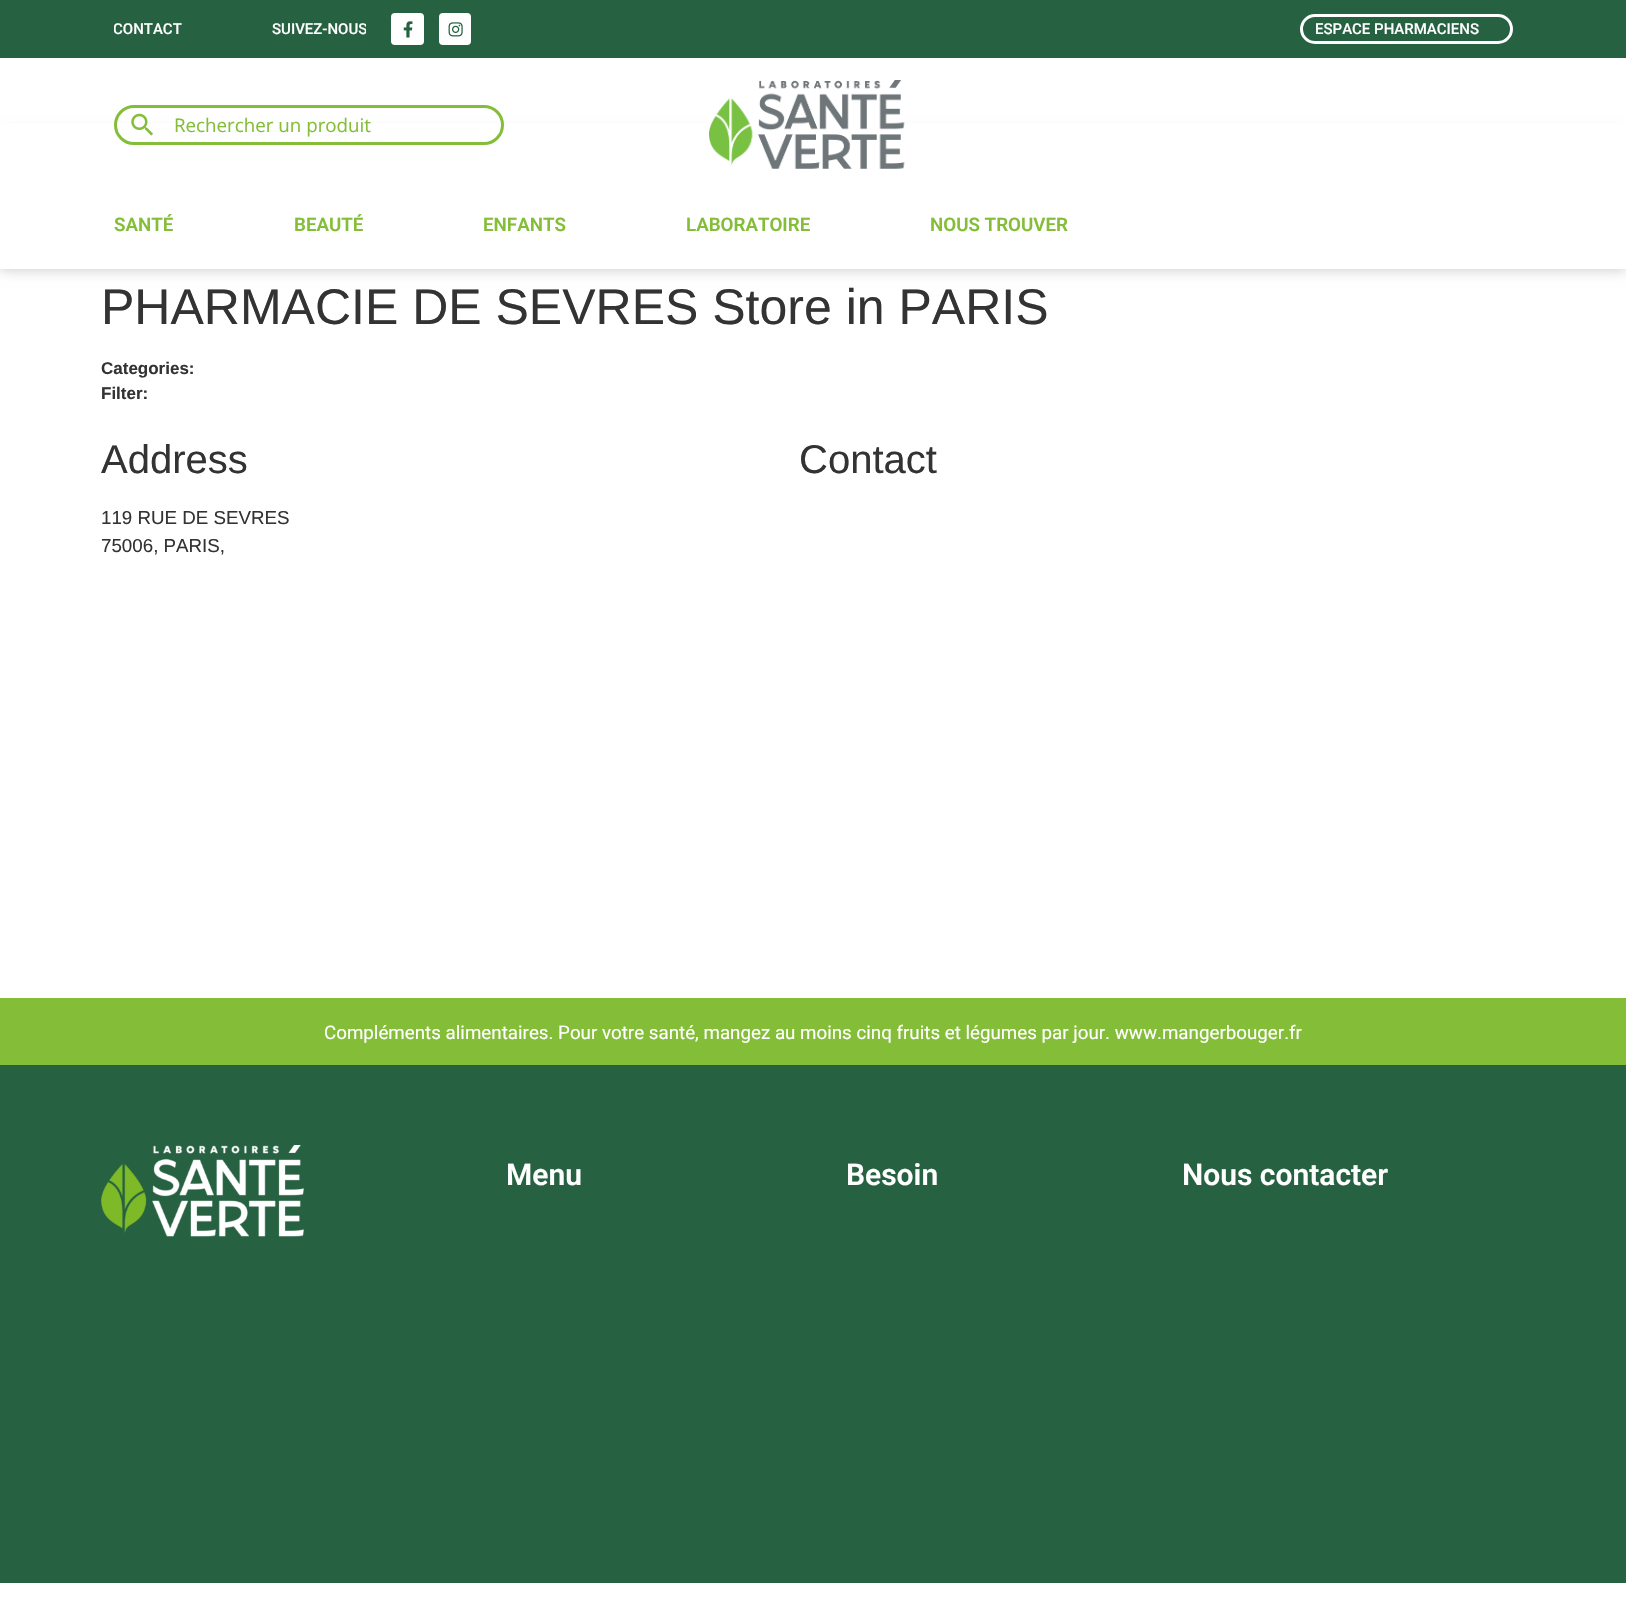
void draw(SkCanvas* canvas) {
    SkPaint paint;
    paint.setAntiAlias(true);
    canvas->clear(0xFFFFFFFF);
    paint.setColor(0xFF266141);
    canvas->drawRect(SkRect::MakeXYWH(0, 0, 1626, 58), paint);
    canvas->save();
    canvas->clipRect(SkRect::MakeXYWH(114, 18, 100, 22));
    SkFont font1(fontMgr->matchFamilyStyle("Roboto", SkFontStyle(500, SkFontStyle::kNormal_Width, SkFontStyle::kUpright_Slant)), 15);
    font1.setSubpixel(true);
    paint.setColor(0xFFFFFFFF);
    canvas->drawString("CONTACT", 113, 34, font1, paint);
    canvas->restore();
    canvas->save();
    canvas->clipRect(SkRect::MakeXYWH(239, 18, 127, 22));
    canvas->drawString("SUIVEZ-NOUS", 272, 34, font1, paint);
    canvas->restore();
    canvas->drawRoundRect(SkRect::MakeXYWH(391, 13, 33, 32), 4, 4, paint);
    canvas->drawImageRect(SkImages::DeferredFromEncodedData(SkData::MakeFromFileName("img1.png")), SkRect::MakeXYWH(403, 21, 10, 17), SkSamplingOptions());
    canvas->drawRoundRect(SkRect::MakeXYWH(439, 13, 32, 32), 4, 4, paint);
    canvas->drawImageRect(SkImages::DeferredFromEncodedData(SkData::MakeFromFileName("img2.png")), SkRect::MakeXYWH(448, 22, 15, 15), SkSamplingOptions());
    paint.setStyle(SkPaint::kStroke_Style);
    paint.setStrokeWidth(3);
    canvas->drawRoundRect(SkRect::MakeXYWH(1301.5f, 15.5f, 210, 27), 13.5f, 13.5f, paint);
    paint.setStyle(SkPaint::kFill_Style);
    canvas->drawString("ESPACE PHARMACIENS", 1315, 34, font1, paint);
    paint.setColor(0x33000000);
    paint.setMaskFilter(SkMaskFilter::MakeBlur(kNormal_SkBlurStyle, 6));
    canvas->drawRect(SkRect::MakeXYWH(0, 133, 1626, 137), paint);
    paint.setMaskFilter(nullptr);
    paint.setColor(0xFFFFFFFF);
    canvas->drawRect(SkRect::MakeXYWH(0, 123, 1626, 146), paint);
    paint.setStyle(SkPaint::kStroke_Style);
    paint.setColor(0xFF84BE38);
    canvas->drawRoundRect(SkRect::MakeXYWH(115.5f, 106.5f, 387, 37), 18.5f, 18.5f, paint);
    canvas->drawImageRect(SkImages::DeferredFromEncodedData(SkData::MakeFromFileName("img3.png")), SkRect::MakeXYWH(131, 113, 22, 23), SkSamplingOptions());
    SkFont font2(fontMgr->matchFamilyStyle("Open Sans", SkFontStyle::Normal()), 18.75f);
    font2.setSubpixel(true);
    paint.setStyle(SkPaint::kFill_Style);
    canvas->drawString("Rechercher un produit", 174, 132, font2, paint);
    canvas->drawImageRect(SkImages::DeferredFromEncodedData(SkData::MakeFromFileName("img4.png")), SkRect::MakeXYWH(709, 80, 196, 89), SkSamplingOptions());
    SkFont font3(fontMgr->matchFamilyStyle("Roboto", SkFontStyle(600, SkFontStyle::kNormal_Width, SkFontStyle::kUpright_Slant)), 18.75f);
    font3.setSubpixel(true);
    canvas->drawString("SANTÉ", 114, 231, font3, paint);
    canvas->drawString("BEAUTÉ", 294, 231, font3, paint);
    canvas->drawString("ENFANTS", 483, 231, font3, paint);
    canvas->drawString("LABORATOIRE", 686, 231, font3, paint);
    canvas->drawString("NOUS TROUVER", 930, 231, font3, paint);
    SkFont font4(fontMgr->matchFamilyStyle("Liberation Sans", SkFontStyle::Normal()), 50);
    font4.setSubpixel(true);
    paint.setColor(0xFF333333);
    canvas->drawString("PHARMACIE DE SEVRES Store in PARIS", 101, 324, font4, paint);
    SkFont font5(fontMgr->matchFamilyStyle("Liberation Sans", SkFontStyle::Bold()), 17);
    font5.setSubpixel(true);
    canvas->drawString("Categories:", 101, 374, font5, paint);
    canvas->drawString("Filter:", 101, 399, font5, paint);
    SkFont font6(fontMgr->matchFamilyStyle("Liberation Sans", SkFontStyle::Normal()), 40);
    font6.setSubpixel(true);
    canvas->drawString("Address", 101, 473, font6, paint);
    SkFont font7(fontMgr->matchFamilyStyle("Liberation Sans", SkFontStyle::Normal()), 18.75f);
    font7.setSubpixel(true);
    canvas->drawString("119 RUE DE SEVRES", 101, 524, font7, paint);
    canvas->drawString("75006, PARIS,", 101, 552, font7, paint);
    canvas->drawString("Contact", 799, 473, font6, paint);
    paint.setColor(0xFF84BE38);
    canvas->drawRect(SkRect::MakeXYWH(0, 998, 1626, 67), paint);
    SkFont font8(fontMgr->matchFamilyStyle("Roboto", SkFontStyle::Normal()), 18.75f);
    font8.setSubpixel(true);
    paint.setColor(0xFFFFFFFF);
    canvas->drawString("Compléments alimentaires. Pour votre santé, mangez au moins cinq fruits et légumes par jour. www.mangerbouger.fr", 324, 1039, font8, paint);
    paint.setColor(0xFF266141);
    canvas->drawRect(SkRect::MakeXYWH(0, 1065, 1626, 518), paint);
    canvas->drawImageRect(SkImages::DeferredFromEncodedData(SkData::MakeFromFileName("img5.png")), SkRect::MakeXYWH(101, 1145, 203, 92), SkSamplingOptions());
    SkFont font9(fontMgr->matchFamilyStyle("Roboto", SkFontStyle(600, SkFontStyle::kNormal_Width, SkFontStyle::kUpright_Slant)), 30);
    font9.setSubpixel(true);
    paint.setColor(0xFFFFFFFF);
    canvas->drawString("Menu", 506, 1185, font9, paint);
    canvas->drawString("Besoin", 846, 1185, font9, paint);
    canvas->drawString("Nous contacter", 1182, 1185, font9, paint);
}
